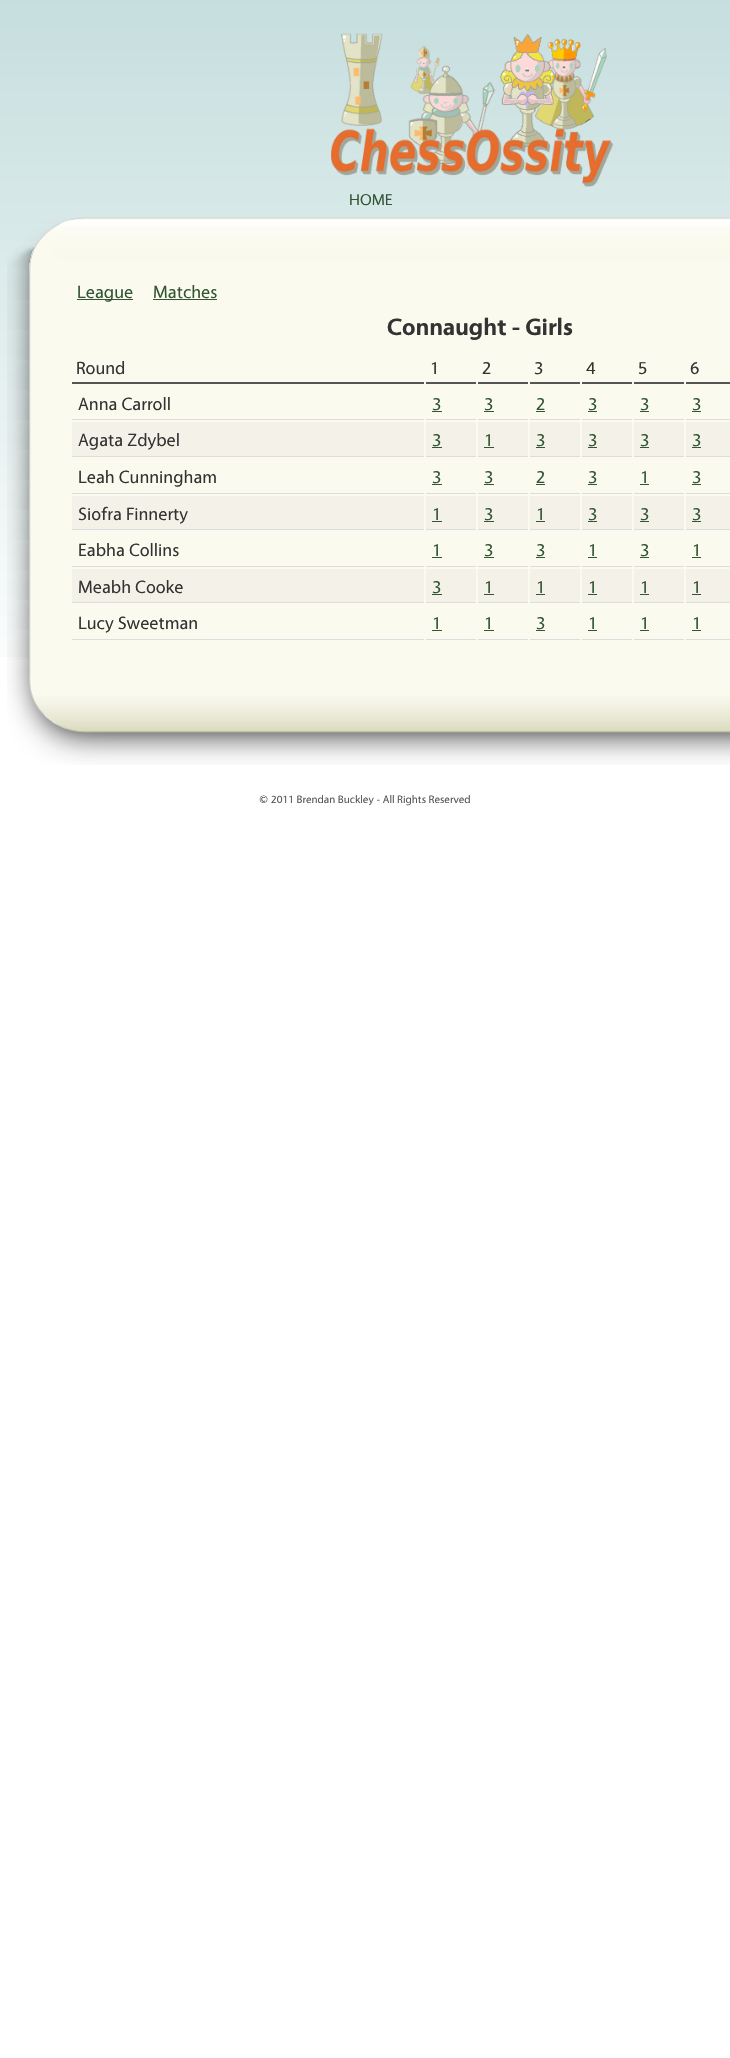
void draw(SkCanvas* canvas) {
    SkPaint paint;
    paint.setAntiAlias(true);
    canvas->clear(0xFFFFFFFF);
    canvas->drawImageRect(SkImages::DeferredFromEncodedData(SkData::MakeFromFileName("img1.png")), SkRect::MakeXYWH(0, 0, 730, 657), SkSamplingOptions());
    canvas->drawImageRect(SkImages::DeferredFromEncodedData(SkData::MakeFromFileName("img2.png")), SkRect::MakeXYWH(331, 33, 283, 154), SkSamplingOptions());
    SkFont font1(fontMgr->matchFamilyStyle("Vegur", SkFontStyle::Normal()), 16);
    font1.setSubpixel(true);
    paint.setColor(0xFF335533);
    canvas->drawString("HOME", 349, 205, font1, paint);
    canvas->drawImageRect(SkImages::DeferredFromEncodedData(SkData::MakeFromFileName("img3.png")), SkRect::MakeXYWH(7, 217, 723, 53), SkSamplingOptions());
    canvas->drawImageRect(SkImages::DeferredFromEncodedData(SkData::MakeFromFileName("img4.png")), SkRect::MakeXYWH(7, 270, 723, 402), SkSamplingOptions());
    canvas->drawRect(SkRect::MakeXYWH(77, 299, 56, 1), paint);
    SkFont font2(fontMgr->matchFamilyStyle("Vegur", SkFontStyle::Normal()), 18);
    font2.setSubpixel(true);
    canvas->drawString("League", 77, 298, font2, paint);
    canvas->drawString("Matches", 153, 298, font2, paint);
    canvas->drawRect(SkRect::MakeXYWH(153, 299, 64, 1), paint);
    SkFont font3(fontMgr->matchFamilyStyle("Vegur", SkFontStyle::Bold()), 24);
    font3.setSubpixel(true);
    paint.setColor(0xFF333333);
    canvas->drawString("Connaught - Girls", 387, 335, font3, paint);
    paint.setColor(0xFF555555);
    canvas->drawRect(SkRect::MakeXYWH(72, 382, 352, 2), paint);
    paint.setColor(0xFF333333);
    canvas->drawString("Round", 76, 374, font2, paint);
    paint.setColor(0xFF555555);
    canvas->drawRect(SkRect::MakeXYWH(426, 382, 50, 2), paint);
    paint.setColor(0xFF333333);
    canvas->drawString("1", 430, 374, font2, paint);
    paint.setColor(0xFF555555);
    canvas->drawRect(SkRect::MakeXYWH(478, 382, 50, 2), paint);
    paint.setColor(0xFF333333);
    canvas->drawString("2", 482, 374, font2, paint);
    paint.setColor(0xFF555555);
    canvas->drawRect(SkRect::MakeXYWH(530, 382, 50, 2), paint);
    paint.setColor(0xFF333333);
    canvas->drawString("3", 534, 374, font2, paint);
    paint.setColor(0xFF555555);
    canvas->drawRect(SkRect::MakeXYWH(582, 382, 50, 2), paint);
    paint.setColor(0xFF333333);
    canvas->drawString("4", 586, 374, font2, paint);
    paint.setColor(0xFF555555);
    canvas->drawRect(SkRect::MakeXYWH(634, 382, 50, 2), paint);
    paint.setColor(0xFF333333);
    canvas->drawString("5", 638, 374, font2, paint);
    paint.setColor(0xFF555555);
    canvas->drawRect(SkRect::MakeXYWH(686, 382, 44, 2), paint);
    paint.setColor(0xFF333333);
    canvas->drawString("6", 690, 374, font2, paint);
    paint.setColor(0xFFDDDDDD);
    canvas->drawRect(SkRect::MakeXYWH(72, 419, 352, 1), paint);
    paint.setColor(0xFF333333);
    canvas->drawString("Anna Carroll", 78, 410, font2, paint);
    paint.setColor(0xFFDDDDDD);
    canvas->drawRect(SkRect::MakeXYWH(426, 419, 50, 1), paint);
    paint.setColor(0xFF335533);
    canvas->drawString("3", 432, 410, font2, paint);
    canvas->drawRect(SkRect::MakeXYWH(432, 411, 10, 1), paint);
    paint.setColor(0xFFDDDDDD);
    canvas->drawRect(SkRect::MakeXYWH(478, 419, 50, 1), paint);
    paint.setColor(0xFF335533);
    canvas->drawString("3", 484, 410, font2, paint);
    canvas->drawRect(SkRect::MakeXYWH(484, 411, 10, 1), paint);
    paint.setColor(0xFFDDDDDD);
    canvas->drawRect(SkRect::MakeXYWH(530, 419, 50, 1), paint);
    paint.setColor(0xFF335533);
    canvas->drawString("2", 536, 410, font2, paint);
    canvas->drawRect(SkRect::MakeXYWH(536, 411, 9, 1), paint);
    paint.setColor(0xFFDDDDDD);
    canvas->drawRect(SkRect::MakeXYWH(582, 419, 50, 1), paint);
    paint.setColor(0xFF335533);
    canvas->drawString("3", 588, 410, font2, paint);
    canvas->drawRect(SkRect::MakeXYWH(588, 411, 9, 1), paint);
    paint.setColor(0xFFDDDDDD);
    canvas->drawRect(SkRect::MakeXYWH(634, 419, 50, 1), paint);
    paint.setColor(0xFF335533);
    canvas->drawString("3", 640, 410, font2, paint);
    canvas->drawRect(SkRect::MakeXYWH(640, 411, 9, 1), paint);
    paint.setColor(0xFFDDDDDD);
    canvas->drawRect(SkRect::MakeXYWH(686, 419, 44, 1), paint);
    paint.setColor(0xFF335533);
    canvas->drawString("3", 692, 410, font2, paint);
    canvas->drawRect(SkRect::MakeXYWH(692, 411, 9, 1), paint);
    paint.setColor(0xFFF4F2E8);
    canvas->drawRect(SkRect::MakeXYWH(72, 422, 352, 34), paint);
    paint.setColor(0xFFDDDDDD);
    canvas->drawRect(SkRect::MakeXYWH(72, 456, 352, 1), paint);
    paint.setColor(0xFF333333);
    canvas->drawString("Agata Zdybel", 78, 446, font2, paint);
    paint.setColor(0xFFF4F2E8);
    canvas->drawRect(SkRect::MakeXYWH(426, 422, 50, 34), paint);
    paint.setColor(0xFFDDDDDD);
    canvas->drawRect(SkRect::MakeXYWH(426, 456, 50, 1), paint);
    paint.setColor(0xFF335533);
    canvas->drawString("3", 432, 446, font2, paint);
    canvas->drawRect(SkRect::MakeXYWH(432, 447, 10, 1), paint);
    paint.setColor(0xFFF4F2E8);
    canvas->drawRect(SkRect::MakeXYWH(478, 422, 50, 34), paint);
    paint.setColor(0xFFDDDDDD);
    canvas->drawRect(SkRect::MakeXYWH(478, 456, 50, 1), paint);
    paint.setColor(0xFF335533);
    canvas->drawString("1", 484, 446, font2, paint);
    canvas->drawRect(SkRect::MakeXYWH(484, 447, 10, 1), paint);
    paint.setColor(0xFFF4F2E8);
    canvas->drawRect(SkRect::MakeXYWH(530, 422, 50, 34), paint);
    paint.setColor(0xFFDDDDDD);
    canvas->drawRect(SkRect::MakeXYWH(530, 456, 50, 1), paint);
    paint.setColor(0xFF335533);
    canvas->drawString("3", 536, 446, font2, paint);
    canvas->drawRect(SkRect::MakeXYWH(536, 447, 9, 1), paint);
    paint.setColor(0xFFF4F2E8);
    canvas->drawRect(SkRect::MakeXYWH(582, 422, 50, 34), paint);
    paint.setColor(0xFFDDDDDD);
    canvas->drawRect(SkRect::MakeXYWH(582, 456, 50, 1), paint);
    paint.setColor(0xFF335533);
    canvas->drawString("3", 588, 446, font2, paint);
    canvas->drawRect(SkRect::MakeXYWH(588, 447, 9, 1), paint);
    paint.setColor(0xFFF4F2E8);
    canvas->drawRect(SkRect::MakeXYWH(634, 422, 50, 34), paint);
    paint.setColor(0xFFDDDDDD);
    canvas->drawRect(SkRect::MakeXYWH(634, 456, 50, 1), paint);
    paint.setColor(0xFF335533);
    canvas->drawString("3", 640, 446, font2, paint);
    canvas->drawRect(SkRect::MakeXYWH(640, 447, 9, 1), paint);
    paint.setColor(0xFFF4F2E8);
    canvas->drawRect(SkRect::MakeXYWH(686, 422, 44, 34), paint);
    paint.setColor(0xFFDDDDDD);
    canvas->drawRect(SkRect::MakeXYWH(686, 456, 44, 1), paint);
    paint.setColor(0xFF335533);
    canvas->drawString("3", 692, 446, font2, paint);
    canvas->drawRect(SkRect::MakeXYWH(692, 447, 9, 1), paint);
    paint.setColor(0xFFDDDDDD);
    canvas->drawRect(SkRect::MakeXYWH(72, 493, 352, 1), paint);
    paint.setColor(0xFF333333);
    canvas->drawString("Leah Cunningham", 78, 483, font2, paint);
    paint.setColor(0xFFDDDDDD);
    canvas->drawRect(SkRect::MakeXYWH(426, 493, 50, 1), paint);
    paint.setColor(0xFF335533);
    canvas->drawString("3", 432, 483, font2, paint);
    canvas->drawRect(SkRect::MakeXYWH(432, 484, 10, 1), paint);
    paint.setColor(0xFFDDDDDD);
    canvas->drawRect(SkRect::MakeXYWH(478, 493, 50, 1), paint);
    paint.setColor(0xFF335533);
    canvas->drawString("3", 484, 483, font2, paint);
    canvas->drawRect(SkRect::MakeXYWH(484, 484, 10, 1), paint);
    paint.setColor(0xFFDDDDDD);
    canvas->drawRect(SkRect::MakeXYWH(530, 493, 50, 1), paint);
    paint.setColor(0xFF335533);
    canvas->drawString("2", 536, 483, font2, paint);
    canvas->drawRect(SkRect::MakeXYWH(536, 484, 9, 1), paint);
    paint.setColor(0xFFDDDDDD);
    canvas->drawRect(SkRect::MakeXYWH(582, 493, 50, 1), paint);
    paint.setColor(0xFF335533);
    canvas->drawString("3", 588, 483, font2, paint);
    canvas->drawRect(SkRect::MakeXYWH(588, 484, 9, 1), paint);
    paint.setColor(0xFFDDDDDD);
    canvas->drawRect(SkRect::MakeXYWH(634, 493, 50, 1), paint);
    paint.setColor(0xFF335533);
    canvas->drawString("1", 640, 483, font2, paint);
    canvas->drawRect(SkRect::MakeXYWH(640, 484, 9, 1), paint);
    paint.setColor(0xFFDDDDDD);
    canvas->drawRect(SkRect::MakeXYWH(686, 493, 44, 1), paint);
    paint.setColor(0xFF335533);
    canvas->drawString("3", 692, 483, font2, paint);
    canvas->drawRect(SkRect::MakeXYWH(692, 484, 9, 1), paint);
    paint.setColor(0xFFF4F2E8);
    canvas->drawRect(SkRect::MakeXYWH(72, 496, 352, 33), paint);
    paint.setColor(0xFFDDDDDD);
    canvas->drawRect(SkRect::MakeXYWH(72, 529, 352, 1), paint);
    paint.setColor(0xFF333333);
    canvas->drawString("Siofra Finnerty", 78, 520, font2, paint);
    paint.setColor(0xFFF4F2E8);
    canvas->drawRect(SkRect::MakeXYWH(426, 496, 50, 33), paint);
    paint.setColor(0xFFDDDDDD);
    canvas->drawRect(SkRect::MakeXYWH(426, 529, 50, 1), paint);
    paint.setColor(0xFF335533);
    canvas->drawString("1", 432, 520, font2, paint);
    canvas->drawRect(SkRect::MakeXYWH(432, 521, 10, 1), paint);
    paint.setColor(0xFFF4F2E8);
    canvas->drawRect(SkRect::MakeXYWH(478, 496, 50, 33), paint);
    paint.setColor(0xFFDDDDDD);
    canvas->drawRect(SkRect::MakeXYWH(478, 529, 50, 1), paint);
    paint.setColor(0xFF335533);
    canvas->drawString("3", 484, 520, font2, paint);
    canvas->drawRect(SkRect::MakeXYWH(484, 521, 10, 1), paint);
    paint.setColor(0xFFF4F2E8);
    canvas->drawRect(SkRect::MakeXYWH(530, 496, 50, 33), paint);
    paint.setColor(0xFFDDDDDD);
    canvas->drawRect(SkRect::MakeXYWH(530, 529, 50, 1), paint);
    paint.setColor(0xFF335533);
    canvas->drawString("1", 536, 520, font2, paint);
    canvas->drawRect(SkRect::MakeXYWH(536, 521, 9, 1), paint);
    paint.setColor(0xFFF4F2E8);
    canvas->drawRect(SkRect::MakeXYWH(582, 496, 50, 33), paint);
    paint.setColor(0xFFDDDDDD);
    canvas->drawRect(SkRect::MakeXYWH(582, 529, 50, 1), paint);
    paint.setColor(0xFF335533);
    canvas->drawString("3", 588, 520, font2, paint);
    canvas->drawRect(SkRect::MakeXYWH(588, 521, 9, 1), paint);
    paint.setColor(0xFFF4F2E8);
    canvas->drawRect(SkRect::MakeXYWH(634, 496, 50, 33), paint);
    paint.setColor(0xFFDDDDDD);
    canvas->drawRect(SkRect::MakeXYWH(634, 529, 50, 1), paint);
    paint.setColor(0xFF335533);
    canvas->drawString("3", 640, 520, font2, paint);
    canvas->drawRect(SkRect::MakeXYWH(640, 521, 9, 1), paint);
    paint.setColor(0xFFF4F2E8);
    canvas->drawRect(SkRect::MakeXYWH(686, 496, 44, 33), paint);
    paint.setColor(0xFFDDDDDD);
    canvas->drawRect(SkRect::MakeXYWH(686, 529, 44, 1), paint);
    paint.setColor(0xFF335533);
    canvas->drawString("3", 692, 520, font2, paint);
    canvas->drawRect(SkRect::MakeXYWH(692, 521, 9, 1), paint);
    paint.setColor(0xFFDDDDDD);
    canvas->drawRect(SkRect::MakeXYWH(72, 566, 352, 1), paint);
    paint.setColor(0xFF333333);
    canvas->drawString("Eabha Collins", 78, 556, font2, paint);
    paint.setColor(0xFFDDDDDD);
    canvas->drawRect(SkRect::MakeXYWH(426, 566, 50, 1), paint);
    paint.setColor(0xFF335533);
    canvas->drawString("1", 432, 556, font2, paint);
    canvas->drawRect(SkRect::MakeXYWH(432, 557, 10, 1), paint);
    paint.setColor(0xFFDDDDDD);
    canvas->drawRect(SkRect::MakeXYWH(478, 566, 50, 1), paint);
    paint.setColor(0xFF335533);
    canvas->drawString("3", 484, 556, font2, paint);
    canvas->drawRect(SkRect::MakeXYWH(484, 557, 10, 1), paint);
    paint.setColor(0xFFDDDDDD);
    canvas->drawRect(SkRect::MakeXYWH(530, 566, 50, 1), paint);
    paint.setColor(0xFF335533);
    canvas->drawString("3", 536, 556, font2, paint);
    canvas->drawRect(SkRect::MakeXYWH(536, 557, 9, 1), paint);
    paint.setColor(0xFFDDDDDD);
    canvas->drawRect(SkRect::MakeXYWH(582, 566, 50, 1), paint);
    paint.setColor(0xFF335533);
    canvas->drawString("1", 588, 556, font2, paint);
    canvas->drawRect(SkRect::MakeXYWH(588, 557, 9, 1), paint);
    paint.setColor(0xFFDDDDDD);
    canvas->drawRect(SkRect::MakeXYWH(634, 566, 50, 1), paint);
    paint.setColor(0xFF335533);
    canvas->drawString("3", 640, 556, font2, paint);
    canvas->drawRect(SkRect::MakeXYWH(640, 557, 9, 1), paint);
    paint.setColor(0xFFDDDDDD);
    canvas->drawRect(SkRect::MakeXYWH(686, 566, 44, 1), paint);
    paint.setColor(0xFF335533);
    canvas->drawString("1", 692, 556, font2, paint);
    canvas->drawRect(SkRect::MakeXYWH(692, 557, 9, 1), paint);
    paint.setColor(0xFFF4F2E8);
    canvas->drawRect(SkRect::MakeXYWH(72, 569, 352, 33), paint);
    paint.setColor(0xFFDDDDDD);
    canvas->drawRect(SkRect::MakeXYWH(72, 602, 352, 1), paint);
    paint.setColor(0xFF333333);
    canvas->drawString("Meabh Cooke", 78, 593, font2, paint);
    paint.setColor(0xFFF4F2E8);
    canvas->drawRect(SkRect::MakeXYWH(426, 569, 50, 33), paint);
    paint.setColor(0xFFDDDDDD);
    canvas->drawRect(SkRect::MakeXYWH(426, 602, 50, 1), paint);
    paint.setColor(0xFF335533);
    canvas->drawString("3", 432, 593, font2, paint);
    canvas->drawRect(SkRect::MakeXYWH(432, 594, 10, 1), paint);
    paint.setColor(0xFFF4F2E8);
    canvas->drawRect(SkRect::MakeXYWH(478, 569, 50, 33), paint);
    paint.setColor(0xFFDDDDDD);
    canvas->drawRect(SkRect::MakeXYWH(478, 602, 50, 1), paint);
    paint.setColor(0xFF335533);
    canvas->drawString("1", 484, 593, font2, paint);
    canvas->drawRect(SkRect::MakeXYWH(484, 594, 10, 1), paint);
    paint.setColor(0xFFF4F2E8);
    canvas->drawRect(SkRect::MakeXYWH(530, 569, 50, 33), paint);
    paint.setColor(0xFFDDDDDD);
    canvas->drawRect(SkRect::MakeXYWH(530, 602, 50, 1), paint);
    paint.setColor(0xFF335533);
    canvas->drawString("1", 536, 593, font2, paint);
    canvas->drawRect(SkRect::MakeXYWH(536, 594, 9, 1), paint);
    paint.setColor(0xFFF4F2E8);
    canvas->drawRect(SkRect::MakeXYWH(582, 569, 50, 33), paint);
    paint.setColor(0xFFDDDDDD);
    canvas->drawRect(SkRect::MakeXYWH(582, 602, 50, 1), paint);
    paint.setColor(0xFF335533);
    canvas->drawString("1", 588, 593, font2, paint);
    canvas->drawRect(SkRect::MakeXYWH(588, 594, 9, 1), paint);
    paint.setColor(0xFFF4F2E8);
    canvas->drawRect(SkRect::MakeXYWH(634, 569, 50, 33), paint);
    paint.setColor(0xFFDDDDDD);
    canvas->drawRect(SkRect::MakeXYWH(634, 602, 50, 1), paint);
    paint.setColor(0xFF335533);
    canvas->drawString("1", 640, 593, font2, paint);
    canvas->drawRect(SkRect::MakeXYWH(640, 594, 9, 1), paint);
    paint.setColor(0xFFF4F2E8);
    canvas->drawRect(SkRect::MakeXYWH(686, 569, 44, 33), paint);
    paint.setColor(0xFFDDDDDD);
    canvas->drawRect(SkRect::MakeXYWH(686, 602, 44, 1), paint);
    paint.setColor(0xFF335533);
    canvas->drawString("1", 692, 593, font2, paint);
    canvas->drawRect(SkRect::MakeXYWH(692, 594, 9, 1), paint);
    paint.setColor(0xFFDDDDDD);
    canvas->drawRect(SkRect::MakeXYWH(72, 639, 352, 1), paint);
    paint.setColor(0xFF333333);
    canvas->drawString("Lucy Sweetman", 78, 629, font2, paint);
    paint.setColor(0xFFDDDDDD);
    canvas->drawRect(SkRect::MakeXYWH(426, 639, 50, 1), paint);
    paint.setColor(0xFF335533);
    canvas->drawString("1", 432, 629, font2, paint);
    canvas->drawRect(SkRect::MakeXYWH(432, 630, 10, 1), paint);
    paint.setColor(0xFFDDDDDD);
    canvas->drawRect(SkRect::MakeXYWH(478, 639, 50, 1), paint);
    paint.setColor(0xFF335533);
    canvas->drawString("1", 484, 629, font2, paint);
    canvas->drawRect(SkRect::MakeXYWH(484, 630, 10, 1), paint);
    paint.setColor(0xFFDDDDDD);
    canvas->drawRect(SkRect::MakeXYWH(530, 639, 50, 1), paint);
    paint.setColor(0xFF335533);
    canvas->drawString("3", 536, 629, font2, paint);
    canvas->drawRect(SkRect::MakeXYWH(536, 630, 9, 1), paint);
    paint.setColor(0xFFDDDDDD);
    canvas->drawRect(SkRect::MakeXYWH(582, 639, 50, 1), paint);
    paint.setColor(0xFF335533);
    canvas->drawString("1", 588, 629, font2, paint);
    canvas->drawRect(SkRect::MakeXYWH(588, 630, 9, 1), paint);
    paint.setColor(0xFFDDDDDD);
    canvas->drawRect(SkRect::MakeXYWH(634, 639, 50, 1), paint);
    paint.setColor(0xFF335533);
    canvas->drawString("1", 640, 629, font2, paint);
    canvas->drawRect(SkRect::MakeXYWH(640, 630, 9, 1), paint);
    paint.setColor(0xFFDDDDDD);
    canvas->drawRect(SkRect::MakeXYWH(686, 639, 44, 1), paint);
    paint.setColor(0xFF335533);
    canvas->drawString("1", 692, 629, font2, paint);
    canvas->drawRect(SkRect::MakeXYWH(692, 630, 9, 1), paint);
    canvas->drawImageRect(SkImages::DeferredFromEncodedData(SkData::MakeFromFileName("img5.png")), SkRect::MakeXYWH(7, 672, 723, 93), SkSamplingOptions());
    SkFont font4(fontMgr->matchFamilyStyle("Carlito", SkFontStyle::Normal()), 11);
    font4.setSubpixel(true);
    paint.setColor(0xFF555555);
    canvas->drawString("©", 259, 803, font4, paint);
    SkFont font5(fontMgr->matchFamilyStyle("Vegur", SkFontStyle::Normal()), 11);
    font5.setSubpixel(true);
    canvas->drawString("2011 Brendan Buckley - All Rights Reserved", 271, 803, font5, paint);
}
